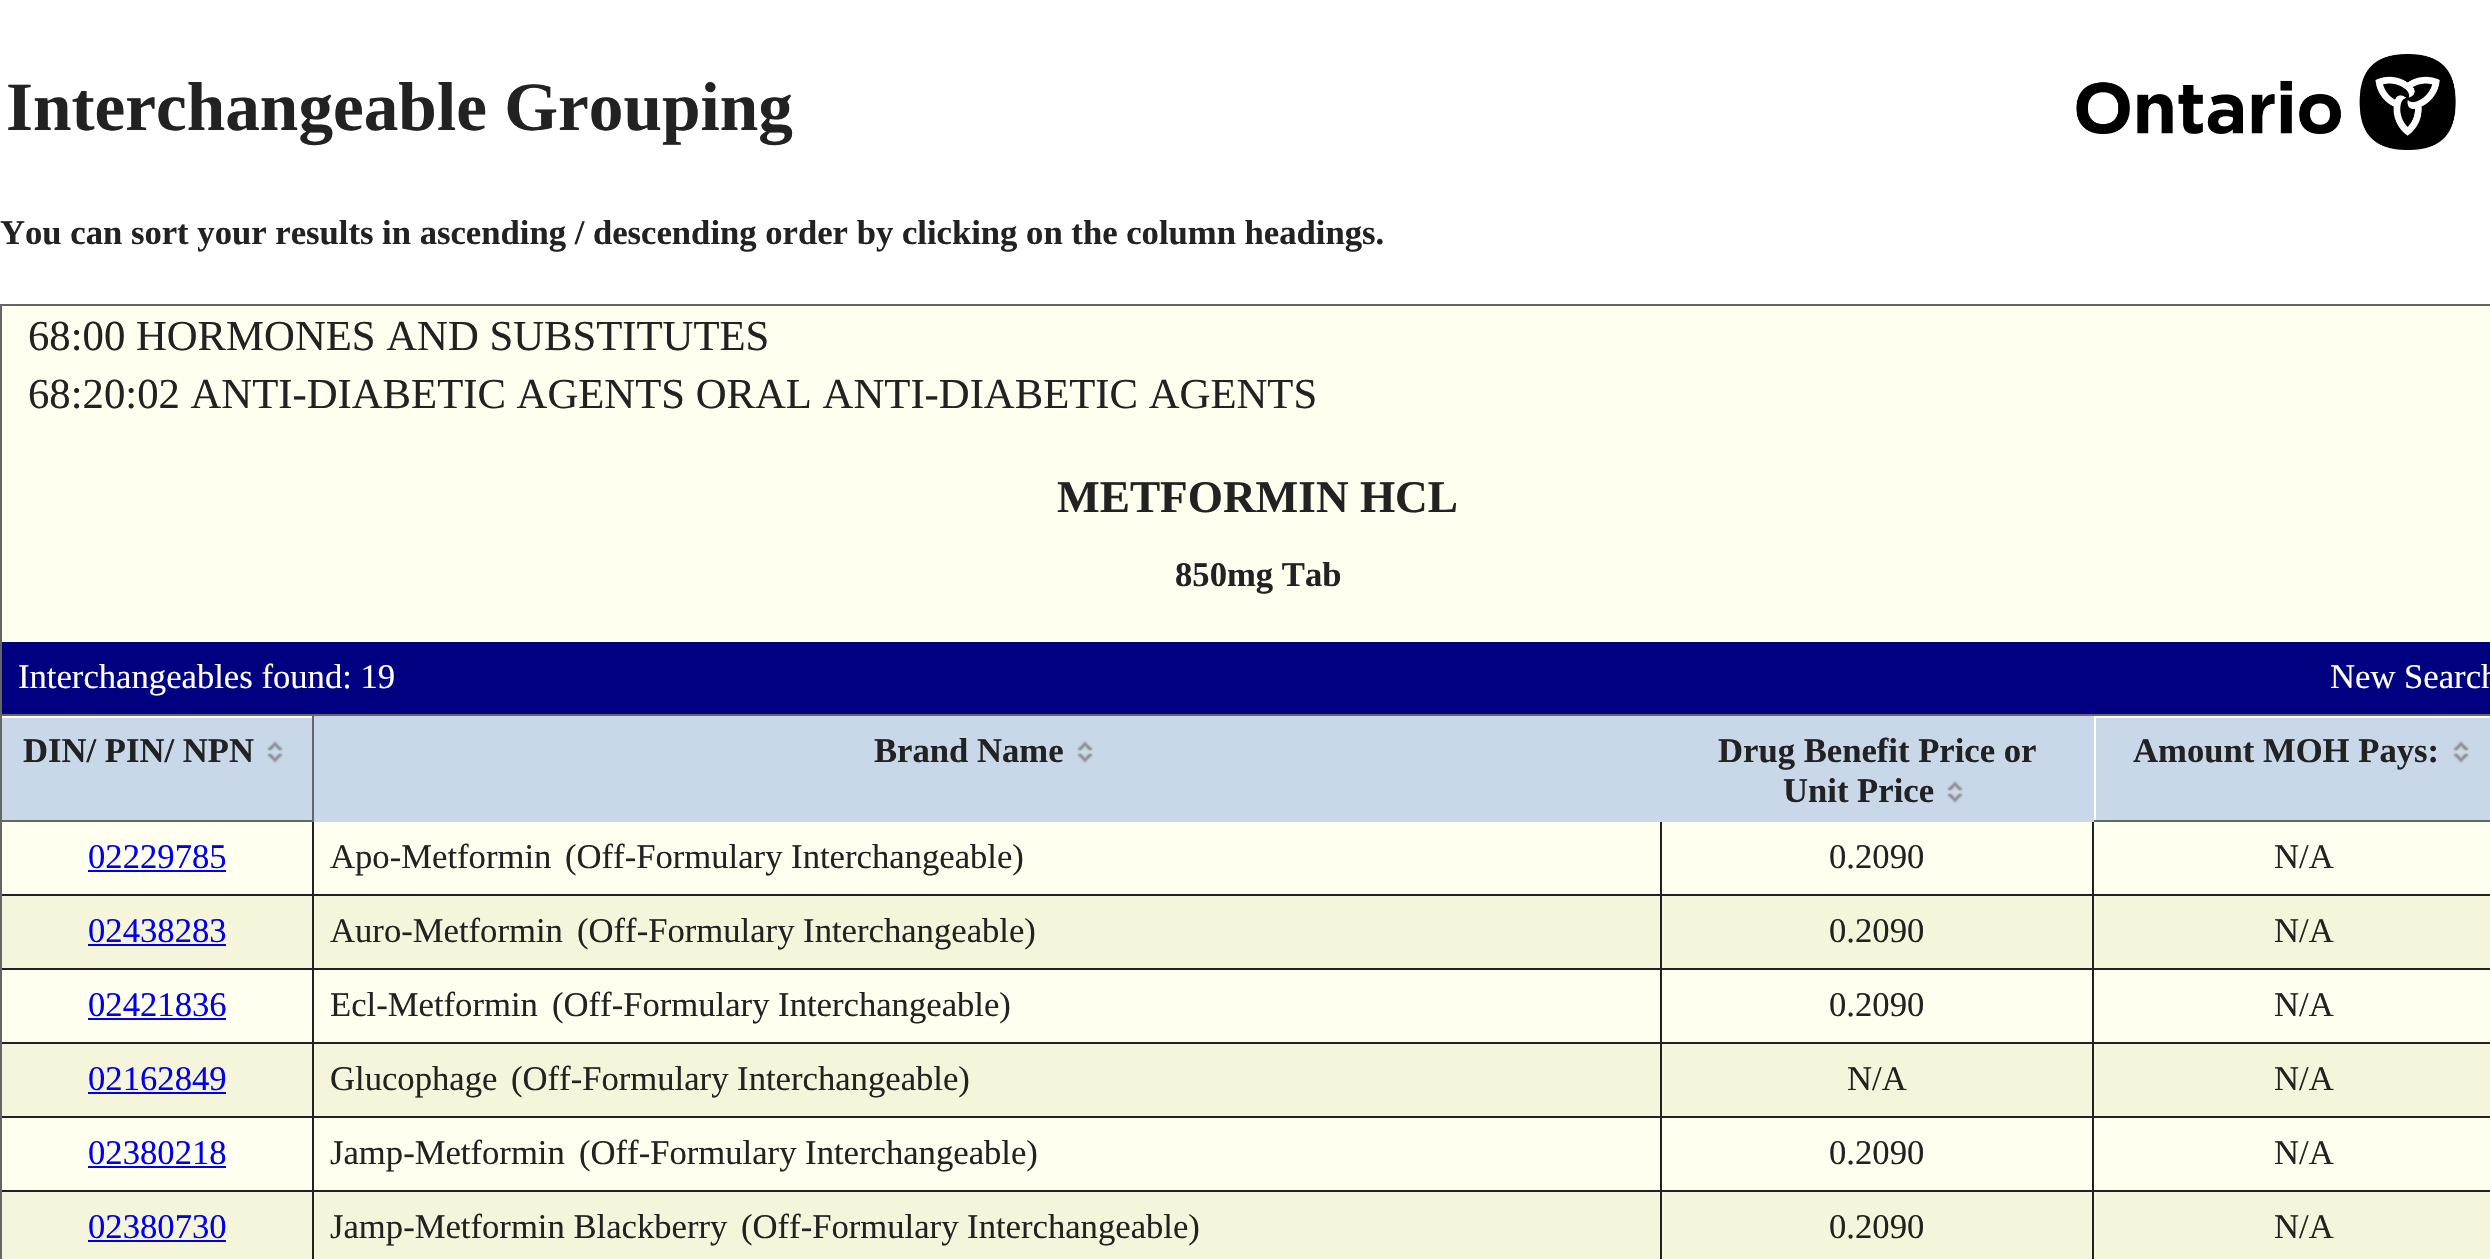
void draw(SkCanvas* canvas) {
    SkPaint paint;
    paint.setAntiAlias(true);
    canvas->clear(0xFFFFFFFF);
    SkFont font1(fontMgr->matchFamilyStyle("Liberation Serif", SkFontStyle::Bold()), 69.25f);
    font1.setSubpixel(true);
    paint.setColor(0xFF222222);
    canvas->drawString("Interchangeable Grouping", 6, 130, font1, paint);
    canvas->drawImageRect(SkImages::DeferredFromEncodedData(SkData::MakeFromFileName("img1.png")), SkRect::MakeXYWH(2076, 54, 380, 96), SkSamplingOptions());
    SkFont font2(fontMgr->matchFamilyStyle("Liberation Serif", SkFontStyle::Bold()), 34.65f);
    font2.setSubpixel(true);
    canvas->drawString("You can sort your results in ascending / descending order by clicking on the column headings.", 0, 244, font2, paint);
    paint.setColor(0xFFFFFFF0);
    canvas->drawRect(SkRect::MakeXYWH(2, 306, 2488, 514), paint);
    paint.setStyle(SkPaint::kStroke_Style);
    paint.setStrokeWidth(2);
    paint.setColor(0xFF666666);
    canvas->drawRect(SkRect::MakeXYWH(1, 305, 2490, 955), paint);
    SkFont font3(fontMgr->matchFamilyStyle("Liberation Serif", SkFontStyle::Normal()), 42.7f);
    font3.setSubpixel(true);
    paint.setStyle(SkPaint::kFill_Style);
    paint.setColor(0xFF222222);
    canvas->drawString("68:00 HORMONES AND SUBSTITUTES", 28, 350, font3, paint);
    canvas->drawString("68:20:02 ANTI-DIABETIC AGENTS ORAL ANTI-DIABETIC AGENTS", 28, 408, font3, paint);
    SkFont font4(fontMgr->matchFamilyStyle("Liberation Serif", SkFontStyle::Bold()), 45.25f);
    font4.setSubpixel(true);
    canvas->drawString("METFORMIN HCL", 1057, 512, font4, paint);
    canvas->drawString("850mg Tab", 1175, 586, font2, paint);
    paint.setColor(0xFF000080);
    canvas->drawRect(SkRect::MakeXYWH(2, 642, 2488, 72), paint);
    SkFont font5(fontMgr->matchFamilyStyle("Liberation Serif", SkFontStyle::Normal()), 34.65f);
    font5.setSubpixel(true);
    paint.setColor(0xFFFFFFFF);
    canvas->drawString("Interchangeables found: 19", 18, 688, font5, paint);
    canvas->drawString("New Search", 2330, 688, font5, paint);
    paint.setColor(0xFF666666);
    canvas->drawRect(SkRect::MakeXYWH(312, 714, 2178, 2), paint);
    paint.setColor(0xFFFFFFF0);
    canvas->drawRect(SkRect::MakeXYWH(2, 822, 2488, 72), paint);
    paint.setColor(0xFF222222);
    canvas->drawRect(SkRect::MakeXYWH(2092, 894, 398, 2), paint);
    paint.setColor(0xFFF5F5DC);
    canvas->drawRect(SkRect::MakeXYWH(2, 896, 2488, 72), paint);
    paint.setColor(0xFF222222);
    canvas->drawRect(SkRect::MakeXYWH(2092, 968, 398, 2), paint);
    paint.setColor(0xFFFFFFF0);
    canvas->drawRect(SkRect::MakeXYWH(2, 970, 2488, 72), paint);
    paint.setColor(0xFF222222);
    canvas->drawRect(SkRect::MakeXYWH(2092, 1042, 398, 2), paint);
    paint.setColor(0xFFF5F5DC);
    canvas->drawRect(SkRect::MakeXYWH(2, 1044, 2488, 72), paint);
    paint.setColor(0xFF222222);
    canvas->drawRect(SkRect::MakeXYWH(2092, 1116, 398, 2), paint);
    paint.setColor(0xFFFFFFF0);
    canvas->drawRect(SkRect::MakeXYWH(2, 1118, 2488, 72), paint);
    paint.setColor(0xFF222222);
    canvas->drawRect(SkRect::MakeXYWH(2092, 1190, 398, 2), paint);
    paint.setColor(0xFFF5F5DC);
    canvas->drawRect(SkRect::MakeXYWH(2, 1192, 2488, 67), paint);
    paint.setColor(0xFF222222);
    canvas->drawRect(SkRect::MakeXYWH(2092, 1190, 2, 69), paint);
    canvas->drawRect(SkRect::MakeXYWH(1660, 1190, 434, 2), paint);
    canvas->drawRect(SkRect::MakeXYWH(2092, 1116, 2, 76), paint);
    canvas->drawRect(SkRect::MakeXYWH(1660, 1116, 434, 2), paint);
    canvas->drawRect(SkRect::MakeXYWH(2092, 1042, 2, 76), paint);
    canvas->drawRect(SkRect::MakeXYWH(1660, 1042, 434, 2), paint);
    canvas->drawRect(SkRect::MakeXYWH(2092, 968, 2, 76), paint);
    canvas->drawRect(SkRect::MakeXYWH(1660, 968, 434, 2), paint);
    canvas->drawRect(SkRect::MakeXYWH(2092, 894, 2, 76), paint);
    canvas->drawRect(SkRect::MakeXYWH(1660, 894, 434, 2), paint);
    canvas->drawRect(SkRect::MakeXYWH(1660, 1190, 2, 69), paint);
    canvas->drawRect(SkRect::MakeXYWH(312, 1190, 1350, 2), paint);
    canvas->drawRect(SkRect::MakeXYWH(1660, 1116, 2, 76), paint);
    canvas->drawRect(SkRect::MakeXYWH(312, 1116, 1350, 2), paint);
    canvas->drawRect(SkRect::MakeXYWH(1660, 1042, 2, 76), paint);
    canvas->drawRect(SkRect::MakeXYWH(312, 1042, 1350, 2), paint);
    canvas->drawRect(SkRect::MakeXYWH(1660, 968, 2, 76), paint);
    canvas->drawRect(SkRect::MakeXYWH(312, 968, 1350, 2), paint);
    canvas->drawRect(SkRect::MakeXYWH(1660, 894, 2, 76), paint);
    canvas->drawRect(SkRect::MakeXYWH(312, 894, 1350, 2), paint);
    canvas->drawRect(SkRect::MakeXYWH(312, 1190, 2, 69), paint);
    canvas->drawRect(SkRect::MakeXYWH(2, 1190, 312, 2), paint);
    canvas->drawRect(SkRect::MakeXYWH(312, 1116, 2, 76), paint);
    canvas->drawRect(SkRect::MakeXYWH(2, 1116, 312, 2), paint);
    canvas->drawRect(SkRect::MakeXYWH(312, 1042, 2, 76), paint);
    canvas->drawRect(SkRect::MakeXYWH(2, 1042, 312, 2), paint);
    canvas->drawRect(SkRect::MakeXYWH(312, 968, 2, 76), paint);
    canvas->drawRect(SkRect::MakeXYWH(2, 968, 312, 2), paint);
    canvas->drawRect(SkRect::MakeXYWH(312, 894, 2, 76), paint);
    canvas->drawRect(SkRect::MakeXYWH(2, 894, 312, 2), paint);
    canvas->drawRect(SkRect::MakeXYWH(312, 820, 2, 76), paint);
    paint.setColor(0xFF666666);
    canvas->drawRect(SkRect::MakeXYWH(312, 714, 2, 108), paint);
    canvas->drawRect(SkRect::MakeXYWH(2, 714, 312, 2), paint);
    canvas->drawRect(SkRect::MakeXYWH(2, 820, 312, 2), paint);
    paint.setColor(0xFFC8D8E8);
    canvas->drawRect(SkRect::MakeXYWH(2, 718, 310, 102), paint);
    paint.setColor(0xFF222222);
    canvas->drawString("DIN/ PIN/ NPN", 23, 762, font2, paint);
    canvas->drawImageRect(SkImages::DeferredFromEncodedData(SkData::MakeFromFileName("img2.png")), SkRect::MakeXYWH(267, 741, 16, 22), SkSamplingOptions());
    canvas->drawRect(SkRect::MakeXYWH(2092, 820, 2, 76), paint);
    paint.setColor(0xFF666666);
    canvas->drawRect(SkRect::MakeXYWH(2092, 820, 398, 2), paint);
    paint.setColor(0xFF222222);
    canvas->drawRect(SkRect::MakeXYWH(1660, 820, 2, 76), paint);
    paint.setColor(0xFFC8D8E8);
    canvas->drawRect(SkRect::MakeXYWH(314, 716, 1780, 106), paint);
    paint.setColor(0xFF222222);
    canvas->drawString("Brand Name", 874, 762, font2, paint);
    canvas->drawImageRect(SkImages::DeferredFromEncodedData(SkData::MakeFromFileName("img2.png")), SkRect::MakeXYWH(1077, 741, 16, 22), SkSamplingOptions());
    canvas->drawString("Drug Benefit Price or", 1718, 762, font2, paint);
    canvas->drawString("Unit Price", 1783, 802, font2, paint);
    canvas->drawImageRect(SkImages::DeferredFromEncodedData(SkData::MakeFromFileName("img2.png")), SkRect::MakeXYWH(1947, 781, 16, 22), SkSamplingOptions());
    paint.setColor(0xFFC8D8E8);
    canvas->drawRect(SkRect::MakeXYWH(2096, 718, 394, 102), paint);
    paint.setColor(0xFF222222);
    canvas->drawString("Amount MOH Pays:", 2133, 762, font2, paint);
    canvas->drawImageRect(SkImages::DeferredFromEncodedData(SkData::MakeFromFileName("img2.png")), SkRect::MakeXYWH(2453, 741, 16, 22), SkSamplingOptions());
    paint.setColor(0xFF0000EE);
    canvas->drawString("02229785", 88, 868, font5, paint);
    canvas->drawRect(SkRect::MakeXYWH(88, 870, 138, 2), paint);
    paint.setColor(0xFF222222);
    canvas->drawString("Apo-Metformin", 330, 868, font5, paint);
    canvas->drawString("(Off-Formulary Interchangeable)", 565, 868, font5, paint);
    canvas->drawString("0.2090", 1829, 868, font5, paint);
    canvas->drawString("N/A", 2274, 868, font5, paint);
    paint.setColor(0xFF0000EE);
    canvas->drawString("02438283", 88, 942, font5, paint);
    canvas->drawRect(SkRect::MakeXYWH(88, 944, 138, 2), paint);
    paint.setColor(0xFF222222);
    canvas->drawString("Auro-Metformin", 330, 942, font5, paint);
    canvas->drawString("(Off-Formulary Interchangeable)", 577, 942, font5, paint);
    canvas->drawString("0.2090", 1829, 942, font5, paint);
    canvas->drawString("N/A", 2274, 942, font5, paint);
    paint.setColor(0xFF0000EE);
    canvas->drawString("02421836", 88, 1016, font5, paint);
    canvas->drawRect(SkRect::MakeXYWH(88, 1018, 138, 2), paint);
    paint.setColor(0xFF222222);
    canvas->drawString("Ecl-Metformin", 330, 1016, font5, paint);
    canvas->drawString("(Off-Formulary Interchangeable)", 552, 1016, font5, paint);
    canvas->drawString("0.2090", 1829, 1016, font5, paint);
    canvas->drawString("N/A", 2274, 1016, font5, paint);
    paint.setColor(0xFF0000EE);
    canvas->drawString("02162849", 88, 1090, font5, paint);
    canvas->drawRect(SkRect::MakeXYWH(88, 1092, 138, 2), paint);
    paint.setColor(0xFF222222);
    canvas->drawString("Glucophage", 330, 1090, font5, paint);
    canvas->drawString("(Off-Formulary Interchangeable)", 511, 1090, font5, paint);
    canvas->drawString("N/A", 1847, 1090, font5, paint);
    canvas->drawString("N/A", 2274, 1090, font5, paint);
    paint.setColor(0xFF0000EE);
    canvas->drawString("02380218", 88, 1164, font5, paint);
    canvas->drawRect(SkRect::MakeXYWH(88, 1166, 138, 2), paint);
    paint.setColor(0xFF222222);
    canvas->drawString("Jamp-Metformin", 330, 1164, font5, paint);
    canvas->drawString("(Off-Formulary Interchangeable)", 579, 1164, font5, paint);
    canvas->drawString("0.2090", 1829, 1164, font5, paint);
    canvas->drawString("N/A", 2274, 1164, font5, paint);
    paint.setColor(0xFF0000EE);
    canvas->drawString("02380730", 88, 1238, font5, paint);
    canvas->drawRect(SkRect::MakeXYWH(88, 1240, 138, 2), paint);
    paint.setColor(0xFF222222);
    canvas->drawString("Jamp-Metformin Blackberry", 330, 1238, font5, paint);
    canvas->drawString("(Off-Formulary Interchangeable)", 741, 1238, font5, paint);
    canvas->drawString("0.2090", 1829, 1238, font5, paint);
    canvas->drawString("N/A", 2274, 1238, font5, paint);
}
